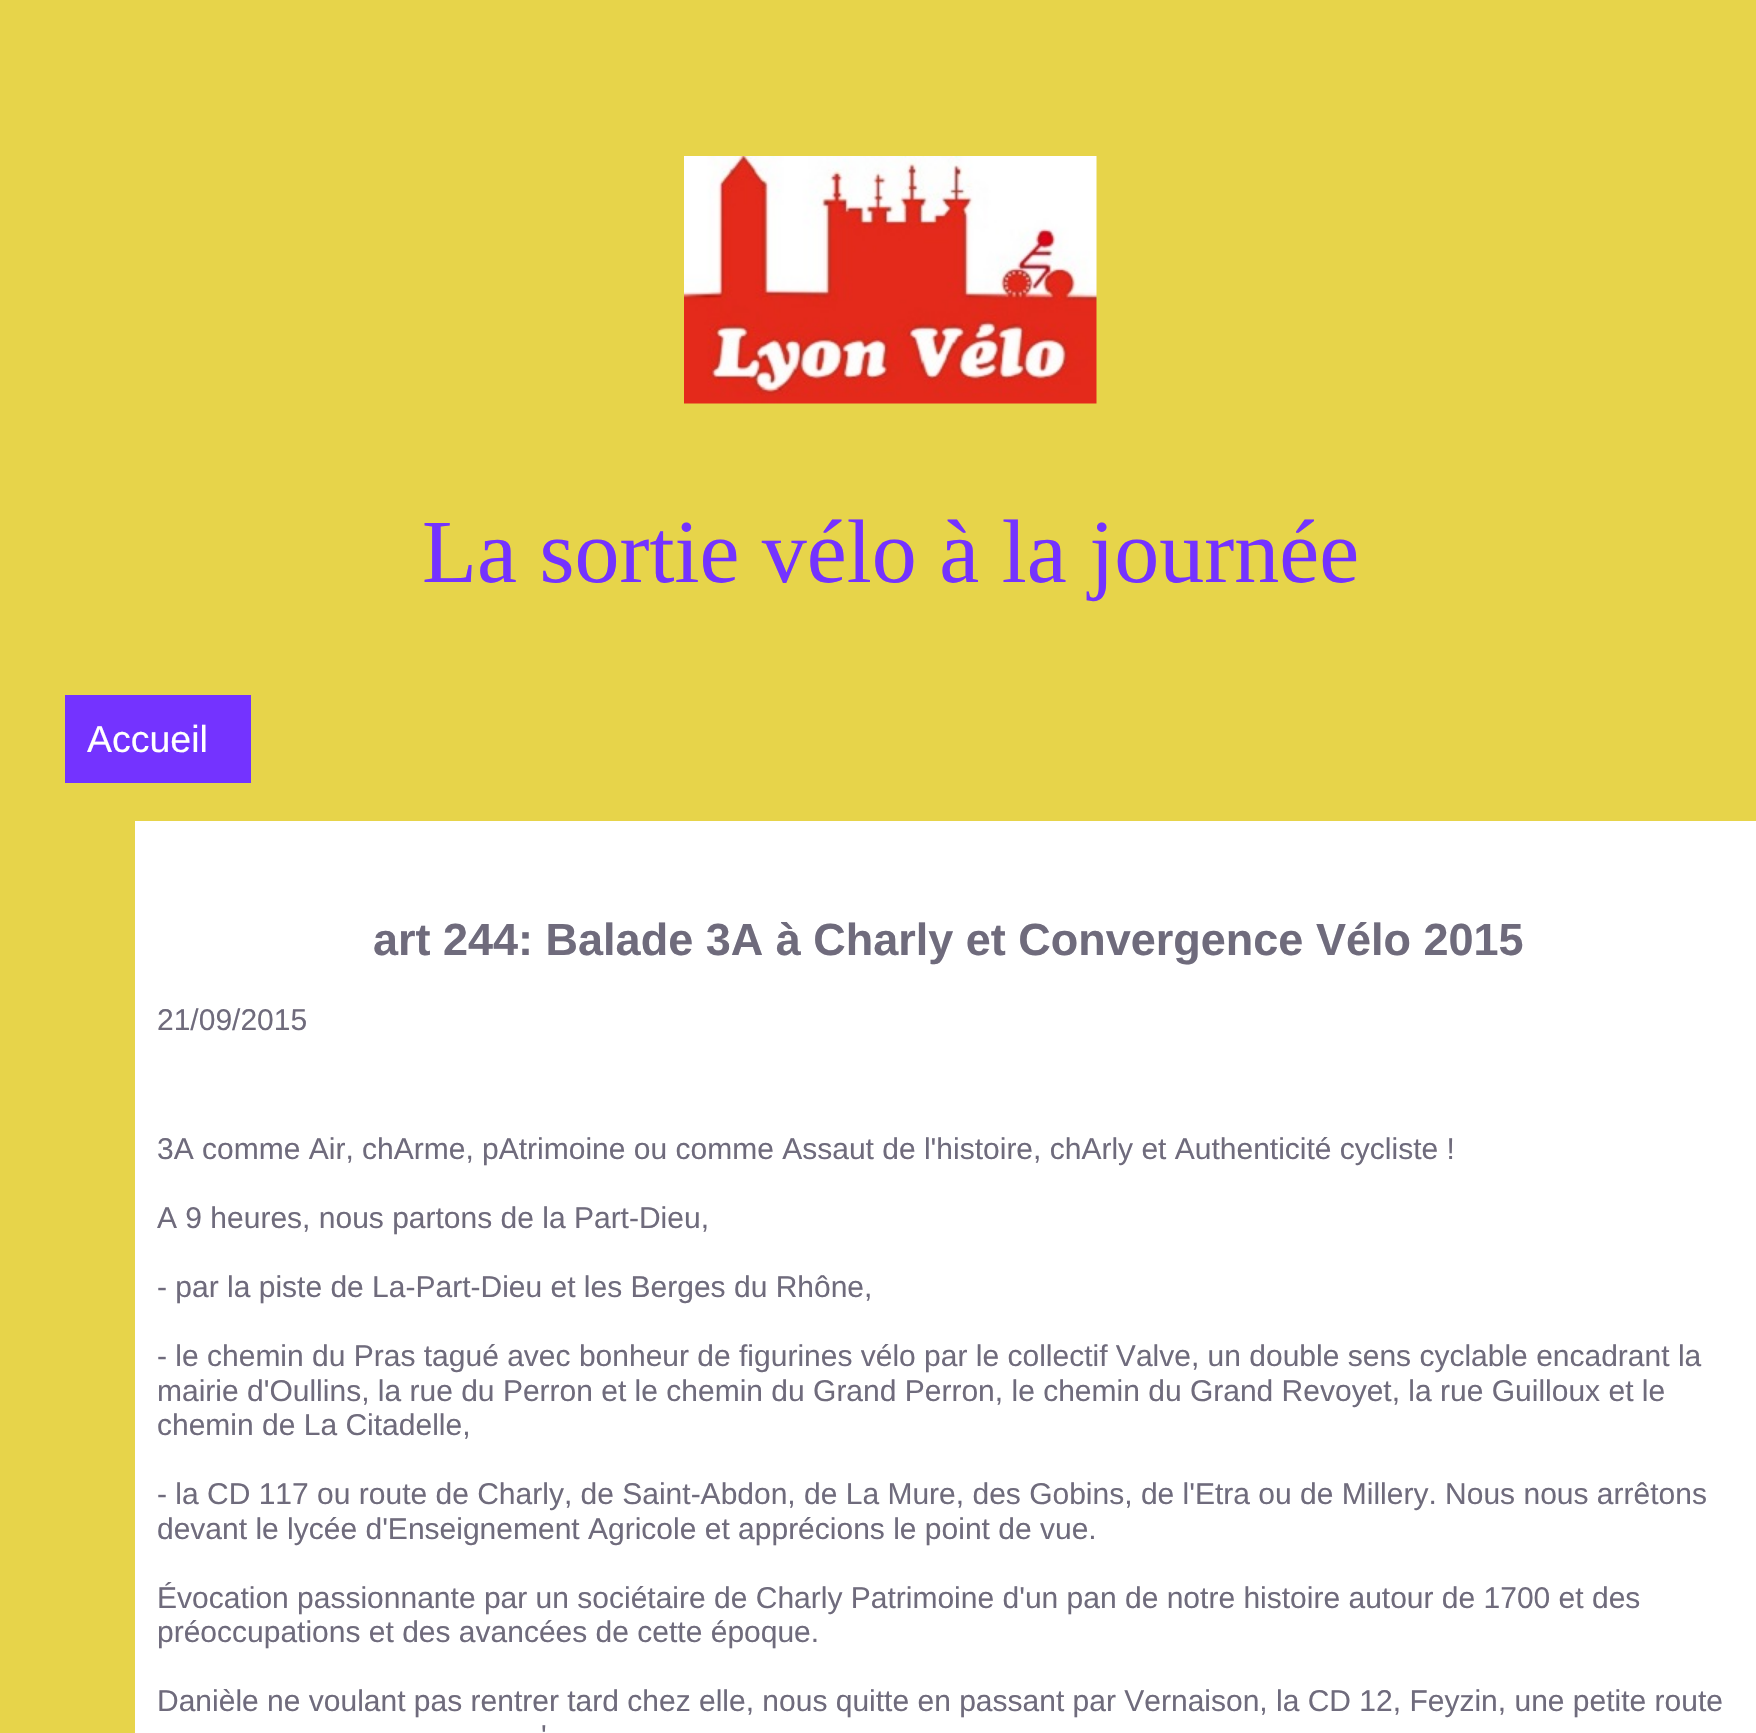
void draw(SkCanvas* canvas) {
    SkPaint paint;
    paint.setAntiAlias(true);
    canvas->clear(0xFFE7D44A);
    canvas->drawImageRect(SkImages::DeferredFromEncodedData(SkData::MakeFromFileName("img1.png")), SkRect::MakeXYWH(684, 156, 413, 248), SkSamplingOptions());
    SkFont font1(fontMgr->matchFamilyStyle("Liberation Serif", SkFontStyle::Normal()), 90);
    font1.setSubpixel(true);
    paint.setColor(0xFF7433FF);
    canvas->drawString("La sortie vélo à la journée", 422, 582, font1, paint);
    canvas->drawRect(SkRect::MakeXYWH(65, 695, 186, 88), paint);
    SkFont font2(fontMgr->matchFamilyStyle("Liberation Sans", SkFontStyle::Normal()), 37.5f);
    font2.setSubpixel(true);
    paint.setColor(0xFFFFFFFF);
    canvas->drawString("Accueil", 87, 752, font2, paint);
    canvas->drawRect(SkRect::MakeXYWH(135, 821, 1621, 912), paint);
    SkFont font3(fontMgr->matchFamilyStyle("Liberation Sans", SkFontStyle::Bold()), 45);
    font3.setSubpixel(true);
    paint.setColor(0xFF6F6B7C);
    canvas->drawString("art 244: Balade 3A à Charly et Convergence Vélo 2015", 373, 955, font3, paint);
    SkFont font4(fontMgr->matchFamilyStyle("Liberation Sans", SkFontStyle::Normal()), 30);
    font4.setSubpixel(true);
    canvas->drawString("21/09/2015", 157, 1030, font4, paint);
    canvas->drawString("3A comme Air, chArme, pAtrimoine ou comme Assaut de l'histoire, chArly et Authenticité cycliste !", 157, 1159, font4, paint);
    canvas->drawString("A 9 heures, nous partons de la Part-Dieu,", 157, 1228, font4, paint);
    canvas->drawString("- par la piste de La-Part-Dieu et les Berges du Rhône,", 157, 1297, font4, paint);
    canvas->drawString("- le chemin du Pras tagué avec bonheur de figurines vélo par le collectif Valve, un double sens cyclable encadrant la", 157, 1366, font4, paint);
    canvas->drawString("mairie d'Oullins, la rue du Perron et le chemin du Grand Perron, le chemin du Grand Revoyet, la rue Guilloux et le", 157, 1401, font4, paint);
    canvas->drawString("chemin de La Citadelle,", 157, 1435, font4, paint);
    canvas->drawString("- la CD 117 ou route de Charly, de Saint-Abdon, de La Mure, des Gobins, de l'Etra ou de Millery. Nous nous arrêtons", 157, 1504, font4, paint);
    canvas->drawString("devant le lycée d'Enseignement Agricole et apprécions le point de vue.", 157, 1539, font4, paint);
    canvas->drawString("Évocation passionnante par un sociétaire de Charly Patrimoine d'un pan de notre histoire autour de 1700 et des", 157, 1608, font4, paint);
    canvas->drawString("préoccupations et des avancées de cette époque.", 157, 1642, font4, paint);
    canvas->drawString("Danièle ne voulant pas rentrer tard chez elle, nous quitte en passant par Vernaison, la CD 12, Feyzin, une petite route", 157, 1711, font4, paint);
    canvas->drawString("'", 541, 1746, font4, paint);
}
